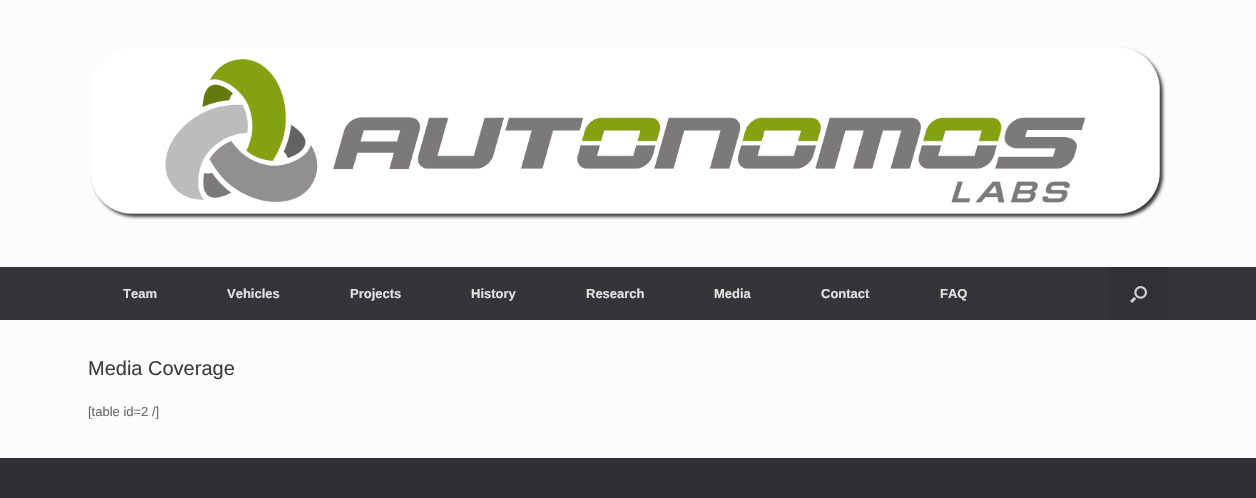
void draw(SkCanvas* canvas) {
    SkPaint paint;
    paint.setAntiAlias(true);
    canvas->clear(0xFF2F3033);
    paint.setColor(0xFFFCFCFC);
    canvas->drawRect(SkRect::MakeXYWH(0, 0, 1256, 267), paint);
    canvas->drawImageRect(SkImages::DeferredFromEncodedData(SkData::MakeFromFileName("img1.png")), SkRect::MakeXYWH(90, 47, 1076, 173), SkSamplingOptions());
    paint.setColor(0xFF343538);
    canvas->drawRect(SkRect::MakeXYWH(0, 267, 1256, 53), paint);
    SkFont font1(fontMgr->matchFamilyStyle("Liberation Sans", SkFontStyle::Bold()), 13);
    font1.setSubpixel(true);
    paint.setColor(0xFFE2E2E2);
    canvas->drawString("Team", 123, 298, font1, paint);
    canvas->drawString("Vehicles", 227, 298, font1, paint);
    canvas->drawString("Projects", 350, 298, font1, paint);
    canvas->drawString("History", 471, 298, font1, paint);
    canvas->drawString("Research", 586, 298, font1, paint);
    canvas->drawString("Media", 714, 298, font1, paint);
    canvas->drawString("Contact", 821, 298, font1, paint);
    canvas->drawString("FAQ", 940, 298, font1, paint);
    paint.setColor(0xFF303134);
    canvas->drawRect(SkRect::MakeXYWH(1109, 267, 59, 53), paint);
    canvas->drawImageRect(SkImages::DeferredFromEncodedData(SkData::MakeFromFileName("img2.png")), SkRect::MakeXYWH(1130, 286, 17, 17), SkSamplingOptions());
    paint.setColor(0xFFFCFCFC);
    canvas->drawRect(SkRect::MakeXYWH(0, 320, 1256, 138), paint);
    SkFont font2(fontMgr->matchFamilyStyle("Liberation Sans", SkFontStyle::Normal()), 20);
    font2.setSubpixel(true);
    paint.setColor(0xFF3B3B3B);
    canvas->drawString("Media Coverage", 88, 375, font2, paint);
    SkFont font3(fontMgr->matchFamilyStyle("Liberation Sans", SkFontStyle::Normal()), 13);
    font3.setSubpixel(true);
    paint.setColor(0xFF666666);
    canvas->drawString("[table id=2 /]", 88, 416, font3, paint);
}
